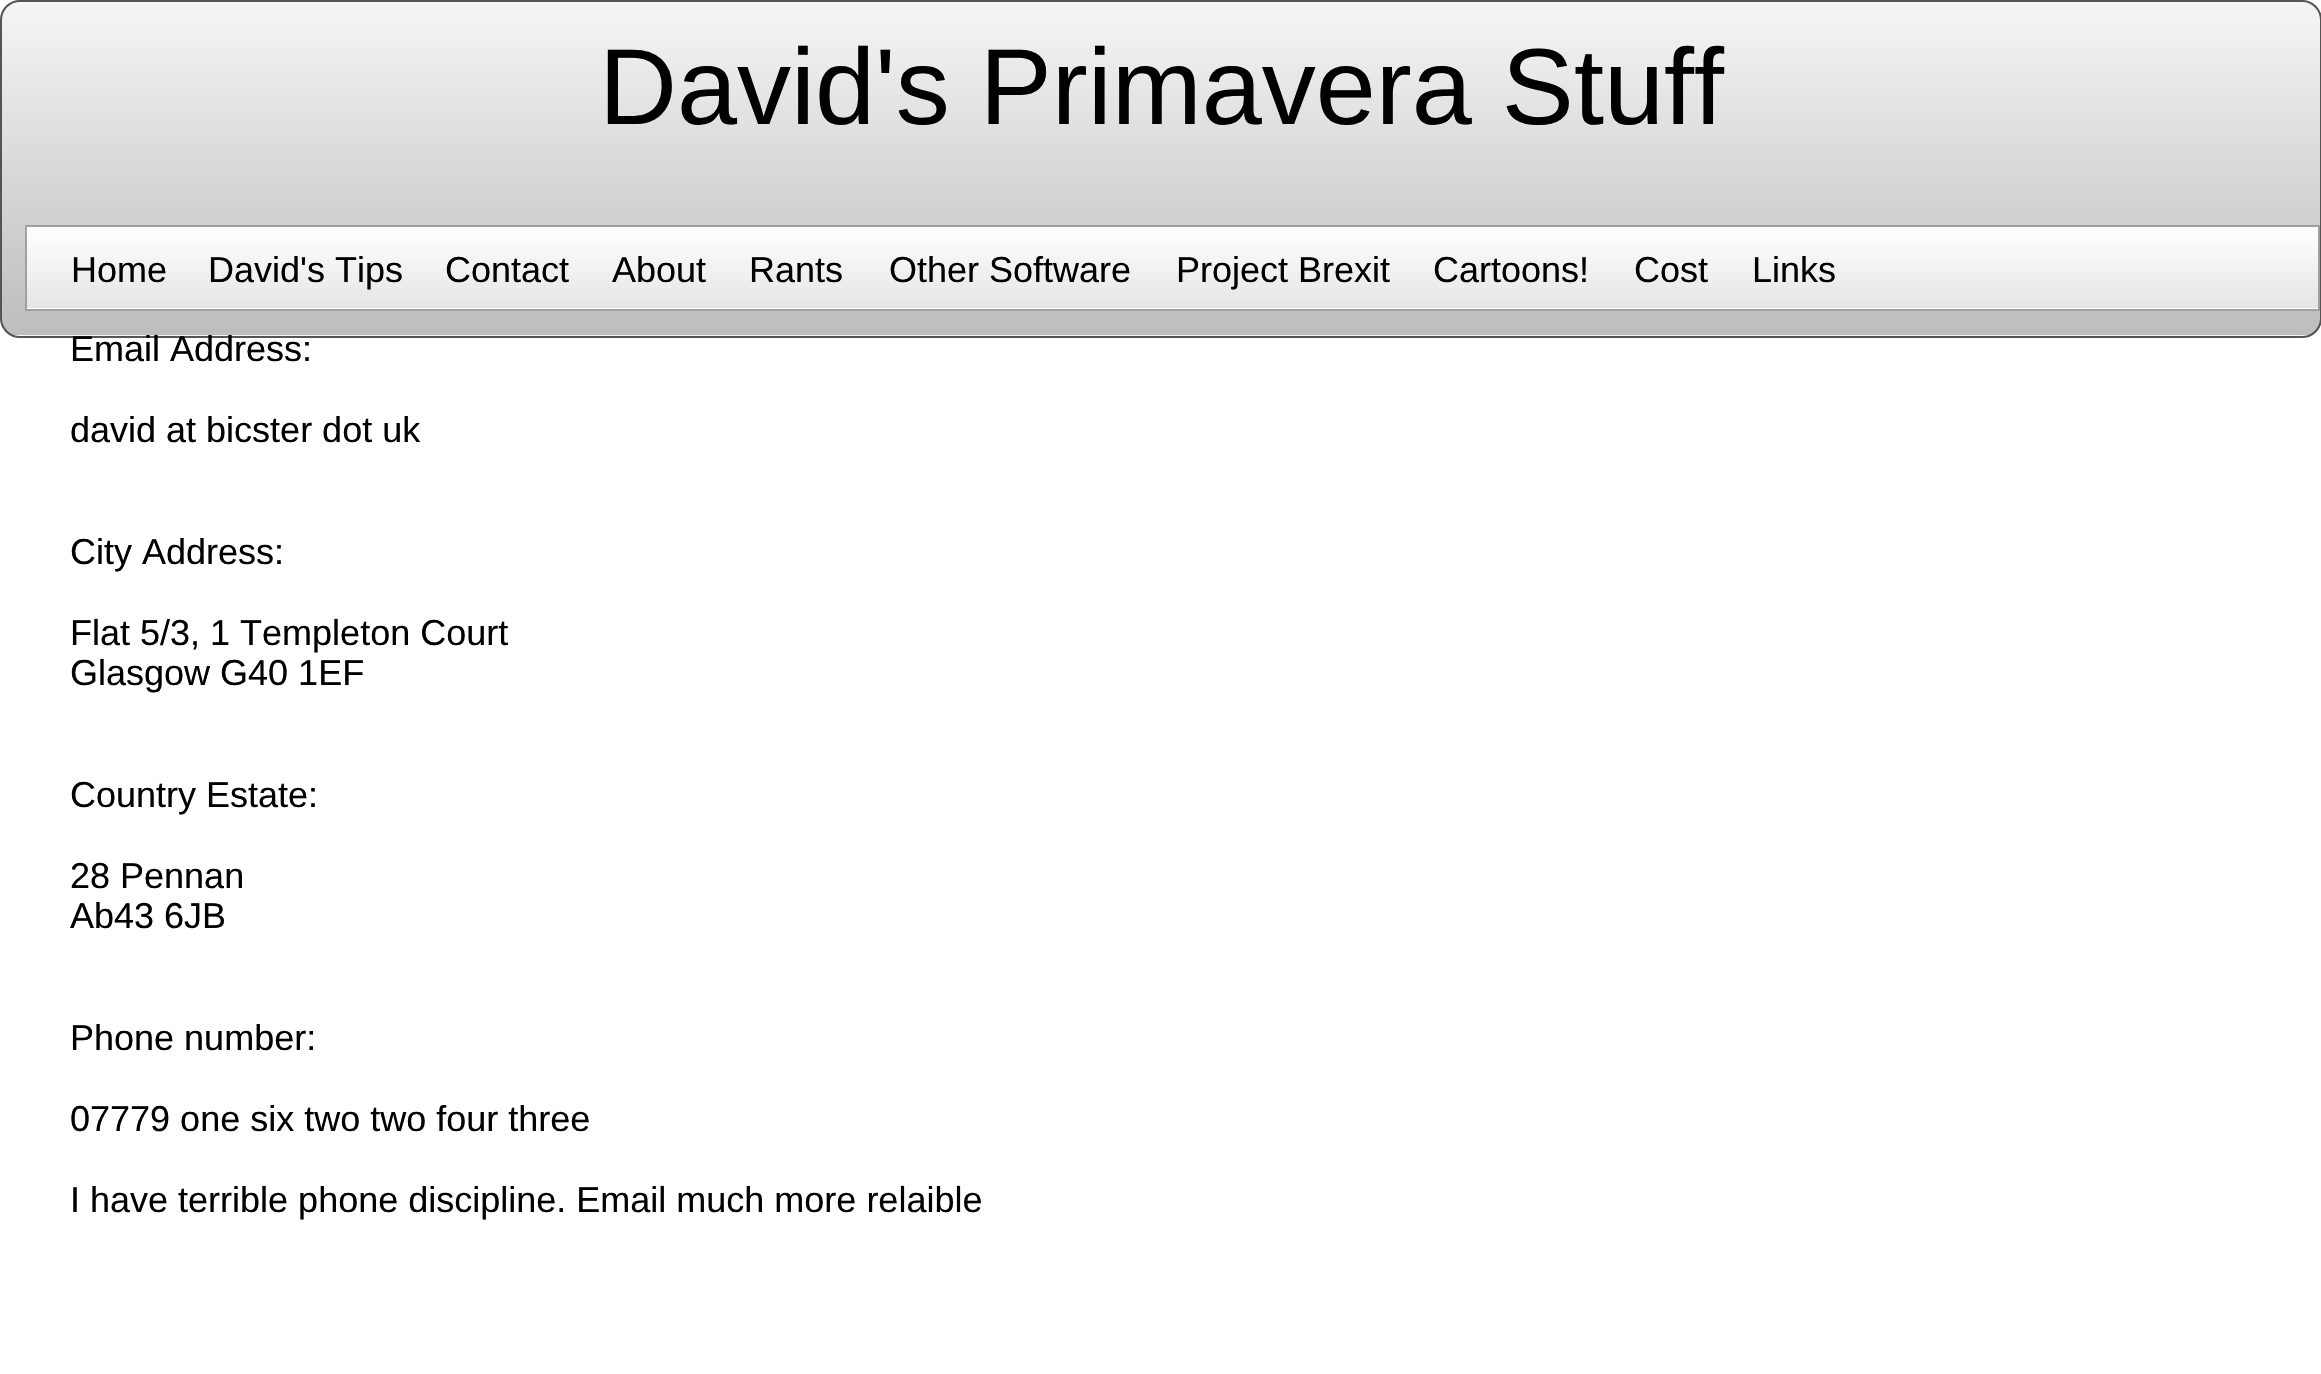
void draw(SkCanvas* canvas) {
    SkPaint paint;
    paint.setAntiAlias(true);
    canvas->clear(0xFFFFFFFF);
    canvas->save();
    canvas->clipPath(SkPathBuilder().moveTo(20, 0).lineTo(2302, 0).cubicTo(2313, 0, 2322, 9, 2322, 20).lineTo(2322, 318).cubicTo(2322, 329, 2313, 338, 2302, 338).lineTo(20, 338).cubicTo(9, 338, 0, 329, 0, 318).lineTo(0, 20).cubicTo(0, 9, 9, 0, 20, 0).close().detach(), true);
    {
        const SkColor colors[] = {0xFFF5F5F5, 0xFFBDBDBD};
        const float stops[] = {0, 1};
        const SkPoint ends[] = {{1161, 2.2f}, {1161, 335}};
        paint.setShader(SkGradientShader::MakeLinear(ends, colors, stops, 2, SkTileMode::kClamp));
        paint.setAlpha(255);
    }
    canvas->drawRect(SkRect::MakeXYWH(0, 2, 2321, 333), paint);
    {
        const SkColor colors[] = {0xFFF5F5F5, 0xFFBDBDBD};
        const float stops[] = {0, 1};
        const SkPoint ends[] = {{1161, 335}, {1161, 668}};
        paint.setShader(SkGradientShader::MakeLinear(ends, colors, stops, 2, SkTileMode::kClamp));
        paint.setAlpha(255);
    }
    canvas->drawRect(SkRect::MakeXYWH(9, 335, 2312, 3), paint);
    canvas->restore();
    paint.setStyle(SkPaint::kStroke_Style);
    paint.setStrokeWidth(2);
    paint.setShader(nullptr);
    paint.setColor(0xFF545454);
    canvas->drawRoundRect(SkRect::MakeXYWH(1, 1, 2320, 336), 19, 19, paint);
    SkFont font1(fontMgr->matchFamilyStyle("Liberation Sans", SkFontStyle::Normal()), 108);
    font1.setSubpixel(true);
    paint.setStyle(SkPaint::kFill_Style);
    paint.setColor(0xFF000000);
    canvas->drawString("David's Primavera Stuff", 599, 124, font1, paint);
    {
        const SkColor colors[] = {0xFFFFFFFF, 0xFFE5E5E5};
        const float stops[] = {0, 1};
        const SkPoint ends[] = {{1172, 227}, {1172, 308}};
        paint.setShader(SkGradientShader::MakeLinear(ends, colors, stops, 2, SkTileMode::kClamp));
        paint.setAlpha(255);
    }
    canvas->drawRect(SkRect::MakeXYWH(27, 227, 2291, 81), paint);
    {
        const SkColor colors[] = {0xFFFFFFFF, 0xFFE5E5E5};
        const float stops[] = {0, 1};
        const SkPoint ends[] = {{1172, 308}, {1172, 389}};
        paint.setShader(SkGradientShader::MakeLinear(ends, colors, stops, 2, SkTileMode::kClamp));
        paint.setAlpha(255);
    }
    canvas->drawRect(SkRect::MakeXYWH(25, 308, 2295, 1), paint);
    paint.setStyle(SkPaint::kStroke_Style);
    paint.setShader(nullptr);
    paint.setColor(0xFFA0A0A0);
    canvas->drawRect(SkRect::MakeXYWH(26, 226, 2293, 84), paint);
    SkFont font2(fontMgr->matchFamilyStyle("Liberation Sans", SkFontStyle::Normal()), 36);
    font2.setSubpixel(true);
    paint.setStyle(SkPaint::kFill_Style);
    paint.setColor(0xFF000000);
    canvas->drawString("Home", 71, 282, font2, paint);
    canvas->drawString("David's Tips", 208, 282, font2, paint);
    canvas->drawString("Contact", 445, 282, font2, paint);
    canvas->drawString("About", 612, 282, font2, paint);
    canvas->drawString("Rants", 749, 282, font2, paint);
    canvas->drawString("Other Software", 889, 282, font2, paint);
    canvas->drawString("Project Brexit", 1176, 282, font2, paint);
    canvas->drawString("Cartoons!", 1433, 282, font2, paint);
    canvas->drawString("Cost", 1634, 282, font2, paint);
    canvas->drawString("Links", 1752, 282, font2, paint);
    canvas->drawString("Email Address:", 70, 361, font2, paint);
    canvas->drawString("david at bicster dot uk", 70, 442, font2, paint);
    canvas->drawString("City Address:", 70, 564, font2, paint);
    canvas->drawString("Flat 5/3, 1 Templeton Court", 70, 645, font2, paint);
    canvas->drawString("Glasgow G40 1EF", 70, 685, font2, paint);
    canvas->drawString("Country Estate:", 70, 807, font2, paint);
    canvas->drawString("28 Pennan", 70, 888, font2, paint);
    canvas->drawString("Ab43 6JB", 70, 928, font2, paint);
    canvas->drawString("Phone number:", 70, 1050, font2, paint);
    canvas->drawString("07779 one six two two four three", 70, 1131, font2, paint);
    canvas->drawString("I have terrible phone discipline. Email much more relaible", 70, 1212, font2, paint);
}
